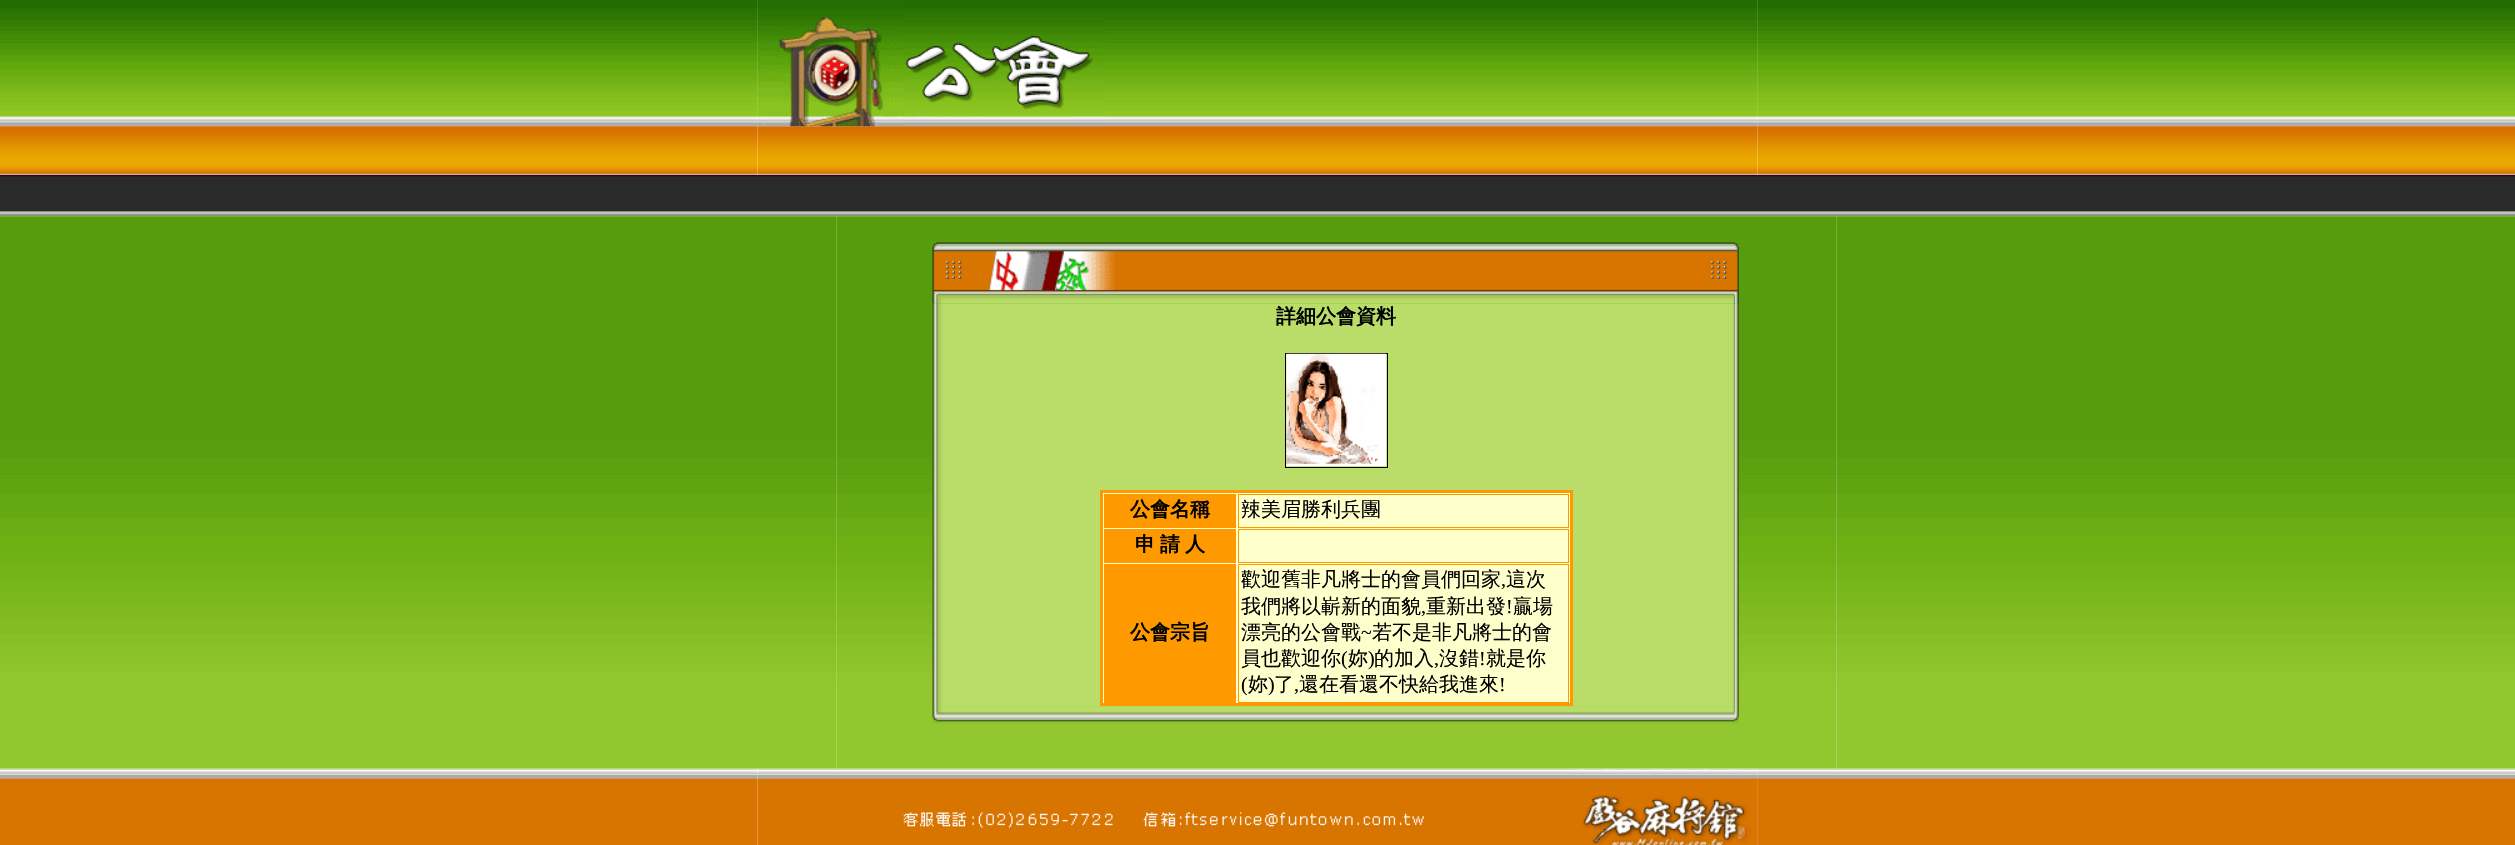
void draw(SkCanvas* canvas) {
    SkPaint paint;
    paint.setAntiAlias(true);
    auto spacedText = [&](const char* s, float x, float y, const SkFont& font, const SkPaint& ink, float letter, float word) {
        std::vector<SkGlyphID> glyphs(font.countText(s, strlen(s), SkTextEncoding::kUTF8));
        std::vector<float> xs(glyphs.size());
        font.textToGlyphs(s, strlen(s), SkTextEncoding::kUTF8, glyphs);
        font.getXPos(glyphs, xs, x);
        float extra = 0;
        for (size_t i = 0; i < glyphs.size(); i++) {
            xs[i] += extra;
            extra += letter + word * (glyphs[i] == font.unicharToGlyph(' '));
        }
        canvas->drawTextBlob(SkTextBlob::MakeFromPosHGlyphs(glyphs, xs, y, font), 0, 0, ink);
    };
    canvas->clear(0xFFFFFFFF);
    canvas->drawImageRect(SkImages::DeferredFromEncodedData(SkData::MakeFromFileName("img1.png")), SkRect::MakeXYWH(0, 0, 758, 127), SkSamplingOptions());
    canvas->drawImageRect(SkImages::DeferredFromEncodedData(SkData::MakeFromFileName("img2.png")), SkRect::MakeXYWH(757, 0, 1001, 127), SkSamplingOptions());
    canvas->drawImageRect(SkImages::DeferredFromEncodedData(SkData::MakeFromFileName("img4.png")), SkRect::MakeXYWH(903, 126, 202, 1), SkSamplingOptions());
    canvas->drawImageRect(SkImages::DeferredFromEncodedData(SkData::MakeFromFileName("img8.png")), SkRect::MakeXYWH(0, 126, 758, 49), SkSamplingOptions());
    canvas->drawImageRect(SkImages::DeferredFromEncodedData(SkData::MakeFromFileName("img6.png")), SkRect::MakeXYWH(1720, 0, 38, 127), SkSamplingOptions());
    canvas->drawImageRect(SkImages::DeferredFromEncodedData(SkData::MakeFromFileName("img7.png")), SkRect::MakeXYWH(1757, 0, 758, 127), SkSamplingOptions());
    canvas->drawImageRect(SkImages::DeferredFromEncodedData(SkData::MakeFromFileName("img9.png")), SkRect::MakeXYWH(757, 126, 1001, 49), SkSamplingOptions());
    canvas->drawImageRect(SkImages::DeferredFromEncodedData(SkData::MakeFromFileName("img3.png")), SkRect::MakeXYWH(757, 0, 147, 127), SkSamplingOptions());
    canvas->drawImageRect(SkImages::DeferredFromEncodedData(SkData::MakeFromFileName("img5.png")), SkRect::MakeXYWH(903, 18, 202, 109), SkSamplingOptions());
    canvas->drawImageRect(SkImages::DeferredFromEncodedData(SkData::MakeFromFileName("img10.png")), SkRect::MakeXYWH(1757, 126, 758, 49), SkSamplingOptions());
    canvas->drawImageRect(SkImages::DeferredFromEncodedData(SkData::MakeFromFileName("img11.png")), SkRect::MakeXYWH(0, 175, 2515, 42), SkSamplingOptions());
    canvas->drawImageRect(SkImages::DeferredFromEncodedData(SkData::MakeFromFileName("img12.png")), SkRect::MakeXYWH(0, 216, 837, 553), SkSamplingOptions());
    canvas->drawImageRect(SkImages::DeferredFromEncodedData(SkData::MakeFromFileName("img13.png")), SkRect::MakeXYWH(836, 216, 1001, 553), SkSamplingOptions());
    canvas->drawImageRect(SkImages::DeferredFromEncodedData(SkData::MakeFromFileName("img15.png")), SkRect::MakeXYWH(932, 303, 807, 404), SkSamplingOptions());
    canvas->drawImageRect(SkImages::DeferredFromEncodedData(SkData::MakeFromFileName("img14.png")), SkRect::MakeXYWH(932, 242, 807, 62), SkSamplingOptions());
    SkFont font1(fontMgr->matchFamilyStyle("WenQuanYi Zen Hei", SkFontStyle::Bold()), 20);
    font1.setSubpixel(true);
    paint.setColor(0xFF000000);
    canvas->drawString("詳細公會資料", 1276, 323, font1, paint);
    paint.setStyle(SkPaint::kStroke_Style);
    paint.setStrokeWidth(1);
    canvas->drawRect(SkRect::MakeXYWH(1285.5f, 353.5f, 102, 114), paint);
    canvas->drawImageRect(SkImages::DeferredFromEncodedData(SkData::MakeFromFileName("img16.png")), SkRect::MakeXYWH(1286, 353, 101, 114), SkSamplingOptions());
    paint.setStyle(SkPaint::kFill_Style);
    paint.setColor(0xFFFFFFCC);
    canvas->drawRect(SkRect::MakeXYWH(1101.5f, 491.5f, 470, 213), paint);
    paint.setStyle(SkPaint::kStroke_Style);
    paint.setStrokeWidth(3);
    paint.setColor(0xFFFF9900);
    canvas->drawRect(SkRect::MakeXYWH(1101.5f, 491.5f, 470, 213), paint);
    paint.setStyle(SkPaint::kFill_Style);
    canvas->drawRect(SkRect::MakeXYWH(1104, 494, 132, 34), paint);
    paint.setColor(0xFF000000);
    canvas->drawString("公會名稱", 1130, 516, font1, paint);
    paint.setStyle(SkPaint::kStroke_Style);
    paint.setStrokeWidth(1);
    paint.setColor(0xFFFF9900);
    canvas->drawRect(SkRect::MakeXYWH(1238.5f, 494.5f, 330, 33), paint);
    SkFont font2(fontMgr->matchFamilyStyle("WenQuanYi Zen Hei", SkFontStyle(500, SkFontStyle::kNormal_Width, SkFontStyle::kUpright_Slant)), 20);
    font2.setSubpixel(true);
    paint.setStyle(SkPaint::kFill_Style);
    paint.setColor(0xFF000000);
    canvas->drawString("辣美眉勝利兵團", 1241, 516, font2, paint);
    paint.setColor(0xFFFF9900);
    canvas->drawRect(SkRect::MakeXYWH(1104, 529, 132, 34), paint);
    paint.setColor(0xFF000000);
    spacedText("申 請 人", 1135, 551, font1, paint, 0, -1);
    paint.setStyle(SkPaint::kStroke_Style);
    paint.setColor(0xFFFF9900);
    canvas->drawRect(SkRect::MakeXYWH(1238.5f, 529.5f, 330, 33), paint);
    paint.setStyle(SkPaint::kFill_Style);
    canvas->drawRect(SkRect::MakeXYWH(1104, 564, 132, 139), paint);
    paint.setColor(0xFF000000);
    canvas->drawString("公會宗旨", 1130, 639, font1, paint);
    paint.setStyle(SkPaint::kStroke_Style);
    paint.setColor(0xFFFF9900);
    canvas->drawRect(SkRect::MakeXYWH(1238.5f, 564.5f, 330, 138), paint);
    paint.setStyle(SkPaint::kFill_Style);
    paint.setColor(0xFF000000);
    canvas->drawString("歡迎舊非凡將士的會員們回家", 1241, 586, font2, paint);
    SkFont font3(fontMgr->matchFamilyStyle("Liberation Serif", SkFontStyle::Normal()), 20);
    font3.setSubpixel(true);
    canvas->drawString(",", 1501, 586, font3, paint);
    canvas->drawString("這次", 1506, 586, font2, paint);
    canvas->drawString("我們將以嶄新的面貌", 1241, 613, font2, paint);
    canvas->drawString(",", 1421, 613, font3, paint);
    canvas->drawString("重新出發", 1426, 613, font2, paint);
    canvas->drawString("!", 1506, 613, font3, paint);
    canvas->drawString("贏場", 1513, 613, font2, paint);
    canvas->drawString("漂亮的公會戰", 1241, 639, font2, paint);
    canvas->drawString("~", 1361, 639, font3, paint);
    canvas->drawString("若不是非凡將士的會", 1372, 639, font2, paint);
    canvas->drawString("員也歡迎你", 1241, 665, font2, paint);
    canvas->drawString("(", 1341, 665, font3, paint);
    canvas->drawString("妳", 1348, 665, font2, paint);
    canvas->drawString(")", 1368, 665, font3, paint);
    canvas->drawString("的加入", 1374, 665, font2, paint);
    canvas->drawString(",", 1434, 665, font3, paint);
    canvas->drawString("沒錯", 1439, 665, font2, paint);
    canvas->drawString("!", 1479, 665, font3, paint);
    canvas->drawString("就是你", 1486, 665, font2, paint);
    canvas->drawString("(", 1241, 691, font3, paint);
    canvas->drawString("妳", 1248, 691, font2, paint);
    canvas->drawString(")", 1268, 691, font3, paint);
    canvas->drawString("了", 1274, 691, font2, paint);
    canvas->drawString(",", 1294, 691, font3, paint);
    canvas->drawString("還在看還不快給我進來", 1299, 691, font2, paint);
    canvas->drawString("!", 1499, 691, font3, paint);
    canvas->drawImageRect(SkImages::DeferredFromEncodedData(SkData::MakeFromFileName("img17.png")), SkRect::MakeXYWH(932, 706, 807, 18), SkSamplingOptions());
    canvas->drawImageRect(SkImages::DeferredFromEncodedData(SkData::MakeFromFileName("img18.png")), SkRect::MakeXYWH(1836, 216, 679, 553), SkSamplingOptions());
    canvas->drawImageRect(SkImages::DeferredFromEncodedData(SkData::MakeFromFileName("img19.png")), SkRect::MakeXYWH(0, 768, 758, 77), SkSamplingOptions());
    canvas->drawImageRect(SkImages::DeferredFromEncodedData(SkData::MakeFromFileName("img20.png")), SkRect::MakeXYWH(757, 768, 1001, 77), SkSamplingOptions());
    canvas->drawImageRect(SkImages::DeferredFromEncodedData(SkData::MakeFromFileName("img21.png")), SkRect::MakeXYWH(903, 812, 521, 16), SkSamplingOptions());
    canvas->drawImageRect(SkImages::DeferredFromEncodedData(SkData::MakeFromFileName("img23.png")), SkRect::MakeXYWH(1757, 768, 758, 77), SkSamplingOptions());
    canvas->drawImageRect(SkImages::DeferredFromEncodedData(SkData::MakeFromFileName("img22.png")), SkRect::MakeXYWH(1570, 768, 188, 77), SkSamplingOptions());
}
